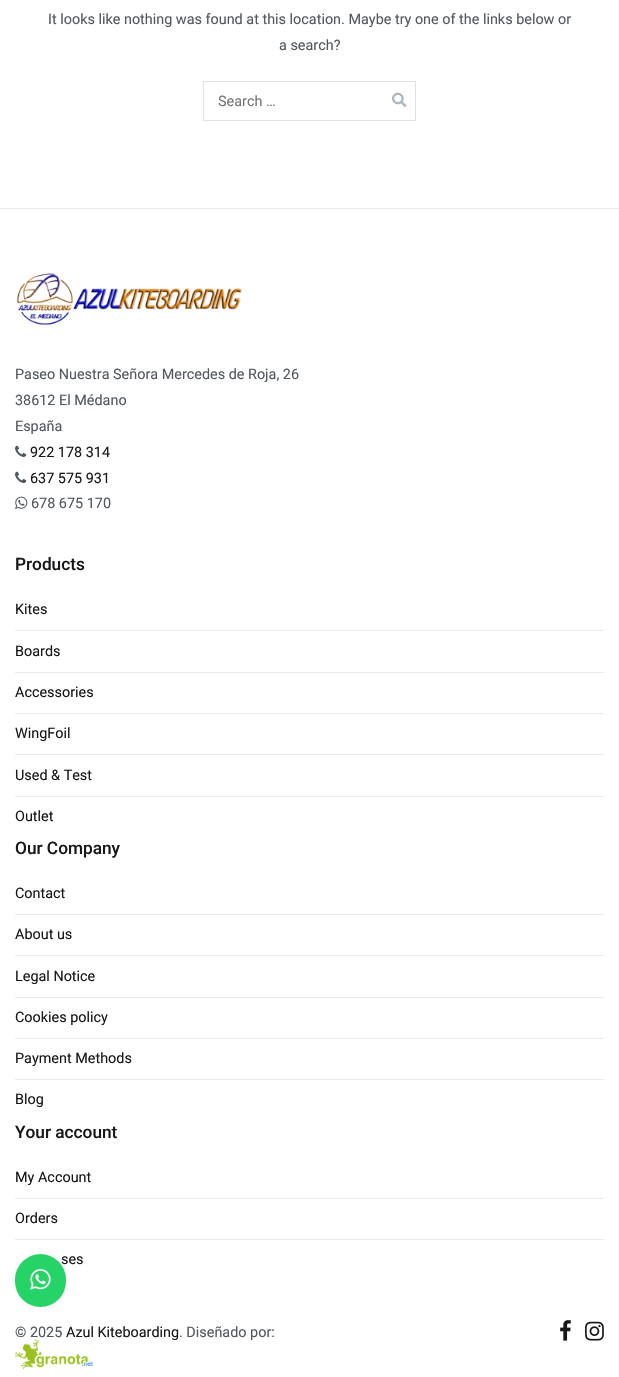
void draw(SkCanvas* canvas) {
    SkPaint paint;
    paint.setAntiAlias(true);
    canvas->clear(0xFFFFFFFF);
    SkFont font1(fontMgr->matchFamilyStyle("Roboto", SkFontStyle::Normal()), 14.4f);
    font1.setSubpixel(true);
    paint.setColor(0xFF51585F);
    canvas->drawString("It looks like nothing was found at this location. Maybe try one of the links below or", 48, 24, font1, paint);
    canvas->drawString("a search?", 279, 50, font1, paint);
    paint.setStyle(SkPaint::kStroke_Style);
    paint.setStrokeWidth(1);
    paint.setColor(0xFFDEE2E6);
    canvas->drawRect(SkRect::MakeXYWH(203.5f, 81.5f, 212, 39), paint);
    paint.setStyle(SkPaint::kFill_Style);
    paint.setColor(0xFF757575);
    canvas->drawString("Search …", 218, 106, font1, paint);
    canvas->drawImageRect(SkImages::DeferredFromEncodedData(SkData::MakeFromFileName("img1.png")), SkRect::MakeXYWH(392, 92, 15, 15), SkSamplingOptions());
    paint.setColor(0xFFE9ECEF);
    canvas->drawRect(SkRect::MakeXYWH(0, 208, 619, 1), paint);
    canvas->drawImageRect(SkImages::DeferredFromEncodedData(SkData::MakeFromFileName("img2.png")), SkRect::MakeXYWH(17, 273, 226, 52), SkSamplingOptions());
    paint.setColor(0xFF51585F);
    canvas->drawString("Paseo Nuestra Señora Mercedes de Roja, 26", 15, 379, font1, paint);
    canvas->drawString("38612 El Médano", 15, 405, font1, paint);
    canvas->drawString("España", 15, 431, font1, paint);
    canvas->drawImageRect(SkImages::DeferredFromEncodedData(SkData::MakeFromFileName("img3.png")), SkRect::MakeXYWH(15, 445, 12, 12), SkSamplingOptions());
    paint.setColor(0xFF16181A);
    canvas->drawString("922 178 314", 30, 457, font1, paint);
    canvas->drawImageRect(SkImages::DeferredFromEncodedData(SkData::MakeFromFileName("img3.png")), SkRect::MakeXYWH(15, 471, 12, 12), SkSamplingOptions());
    canvas->drawString("637 575 931", 30, 483, font1, paint);
    canvas->drawImageRect(SkImages::DeferredFromEncodedData(SkData::MakeFromFileName("img4.png")), SkRect::MakeXYWH(15, 496, 13, 13), SkSamplingOptions());
    paint.setColor(0xFF51585F);
    canvas->drawString("678 675 170", 31, 508, font1, paint);
    paint.setColor(0xFF16181A);
    canvas->drawString("ses", 61, 1264, font1, paint);
    paint.setColor(0xFF25D366);
    canvas->drawRoundRect(SkRect::MakeXYWH(15, 1254, 51, 53), 25.5f, 25.5f, paint);
    canvas->drawImageRect(SkImages::DeferredFromEncodedData(SkData::MakeFromFileName("img5.png")), SkRect::MakeXYWH(30, 1269, 21, 21), SkSamplingOptions());
    SkFont font2(fontMgr->matchFamilyStyle("Roboto", SkFontStyle(500, SkFontStyle::kNormal_Width, SkFontStyle::kUpright_Slant)), 17.25f);
    font2.setSubpixel(true);
    paint.setColor(0xFF16181A);
    canvas->drawString("Products", 15, 570, font2, paint);
    paint.setColor(0xFFE9ECEF);
    canvas->drawRect(SkRect::MakeXYWH(15, 630, 589, 1), paint);
    paint.setColor(0xFF16181A);
    canvas->drawString("Kites", 15, 614, font1, paint);
    paint.setColor(0xFFE9ECEF);
    canvas->drawRect(SkRect::MakeXYWH(15, 672, 589, 1), paint);
    paint.setColor(0xFF16181A);
    canvas->drawString("Boards", 15, 656, font1, paint);
    paint.setColor(0xFFE9ECEF);
    canvas->drawRect(SkRect::MakeXYWH(15, 713, 589, 1), paint);
    paint.setColor(0xFF16181A);
    canvas->drawString("Accessories", 15, 697, font1, paint);
    paint.setColor(0xFFE9ECEF);
    canvas->drawRect(SkRect::MakeXYWH(15, 754, 589, 1), paint);
    paint.setColor(0xFF16181A);
    canvas->drawString("WingFoil", 15, 738, font1, paint);
    paint.setColor(0xFFE9ECEF);
    canvas->drawRect(SkRect::MakeXYWH(15, 796, 589, 1), paint);
    paint.setColor(0xFF16181A);
    canvas->drawString("Used & Test", 15, 780, font1, paint);
    canvas->drawString("Outlet", 15, 821, font1, paint);
    canvas->drawString("Our Company", 15, 854, font2, paint);
    paint.setColor(0xFFE9ECEF);
    canvas->drawRect(SkRect::MakeXYWH(15, 914, 589, 1), paint);
    paint.setColor(0xFF16181A);
    canvas->drawString("Contact", 15, 898, font1, paint);
    paint.setColor(0xFFE9ECEF);
    canvas->drawRect(SkRect::MakeXYWH(15, 955, 589, 1), paint);
    paint.setColor(0xFF16181A);
    canvas->drawString("About us", 15, 939, font1, paint);
    paint.setColor(0xFFE9ECEF);
    canvas->drawRect(SkRect::MakeXYWH(15, 997, 589, 1), paint);
    paint.setColor(0xFF16181A);
    canvas->drawString("Legal Notice", 15, 981, font1, paint);
    paint.setColor(0xFFE9ECEF);
    canvas->drawRect(SkRect::MakeXYWH(15, 1038, 589, 1), paint);
    paint.setColor(0xFF16181A);
    canvas->drawString("Cookies policy", 15, 1022, font1, paint);
    paint.setColor(0xFFE9ECEF);
    canvas->drawRect(SkRect::MakeXYWH(15, 1079, 589, 1), paint);
    paint.setColor(0xFF16181A);
    canvas->drawString("Payment Methods", 15, 1063, font1, paint);
    canvas->drawString("Blog", 15, 1104, font1, paint);
    canvas->drawString("Your account", 15, 1138, font2, paint);
    paint.setColor(0xFFE9ECEF);
    canvas->drawRect(SkRect::MakeXYWH(15, 1198, 589, 1), paint);
    paint.setColor(0xFF16181A);
    canvas->drawString("My Account", 15, 1182, font1, paint);
    paint.setColor(0xFFE9ECEF);
    canvas->drawRect(SkRect::MakeXYWH(15, 1239, 589, 1), paint);
    paint.setColor(0xFF16181A);
    canvas->drawString("Orders", 15, 1223, font1, paint);
    paint.setColor(0xFF51585F);
    canvas->drawString("© 2025", 15, 1337, font1, paint);
    paint.setColor(0xFF16181A);
    canvas->drawString("Azul Kiteboarding", 66, 1337, font1, paint);
    paint.setColor(0xFF51585F);
    canvas->drawString(". Diseñado por:", 179, 1337, font1, paint);
    canvas->drawImageRect(SkImages::DeferredFromEncodedData(SkData::MakeFromFileName("img6.png")), SkRect::MakeXYWH(15, 1339, 78, 30), SkSamplingOptions());
    canvas->drawImageRect(SkImages::DeferredFromEncodedData(SkData::MakeFromFileName("img7.png")), SkRect::MakeXYWH(560, 1320, 11, 21), SkSamplingOptions());
    canvas->drawImageRect(SkImages::DeferredFromEncodedData(SkData::MakeFromFileName("img8.png")), SkRect::MakeXYWH(585, 1321, 19, 20), SkSamplingOptions());
}
